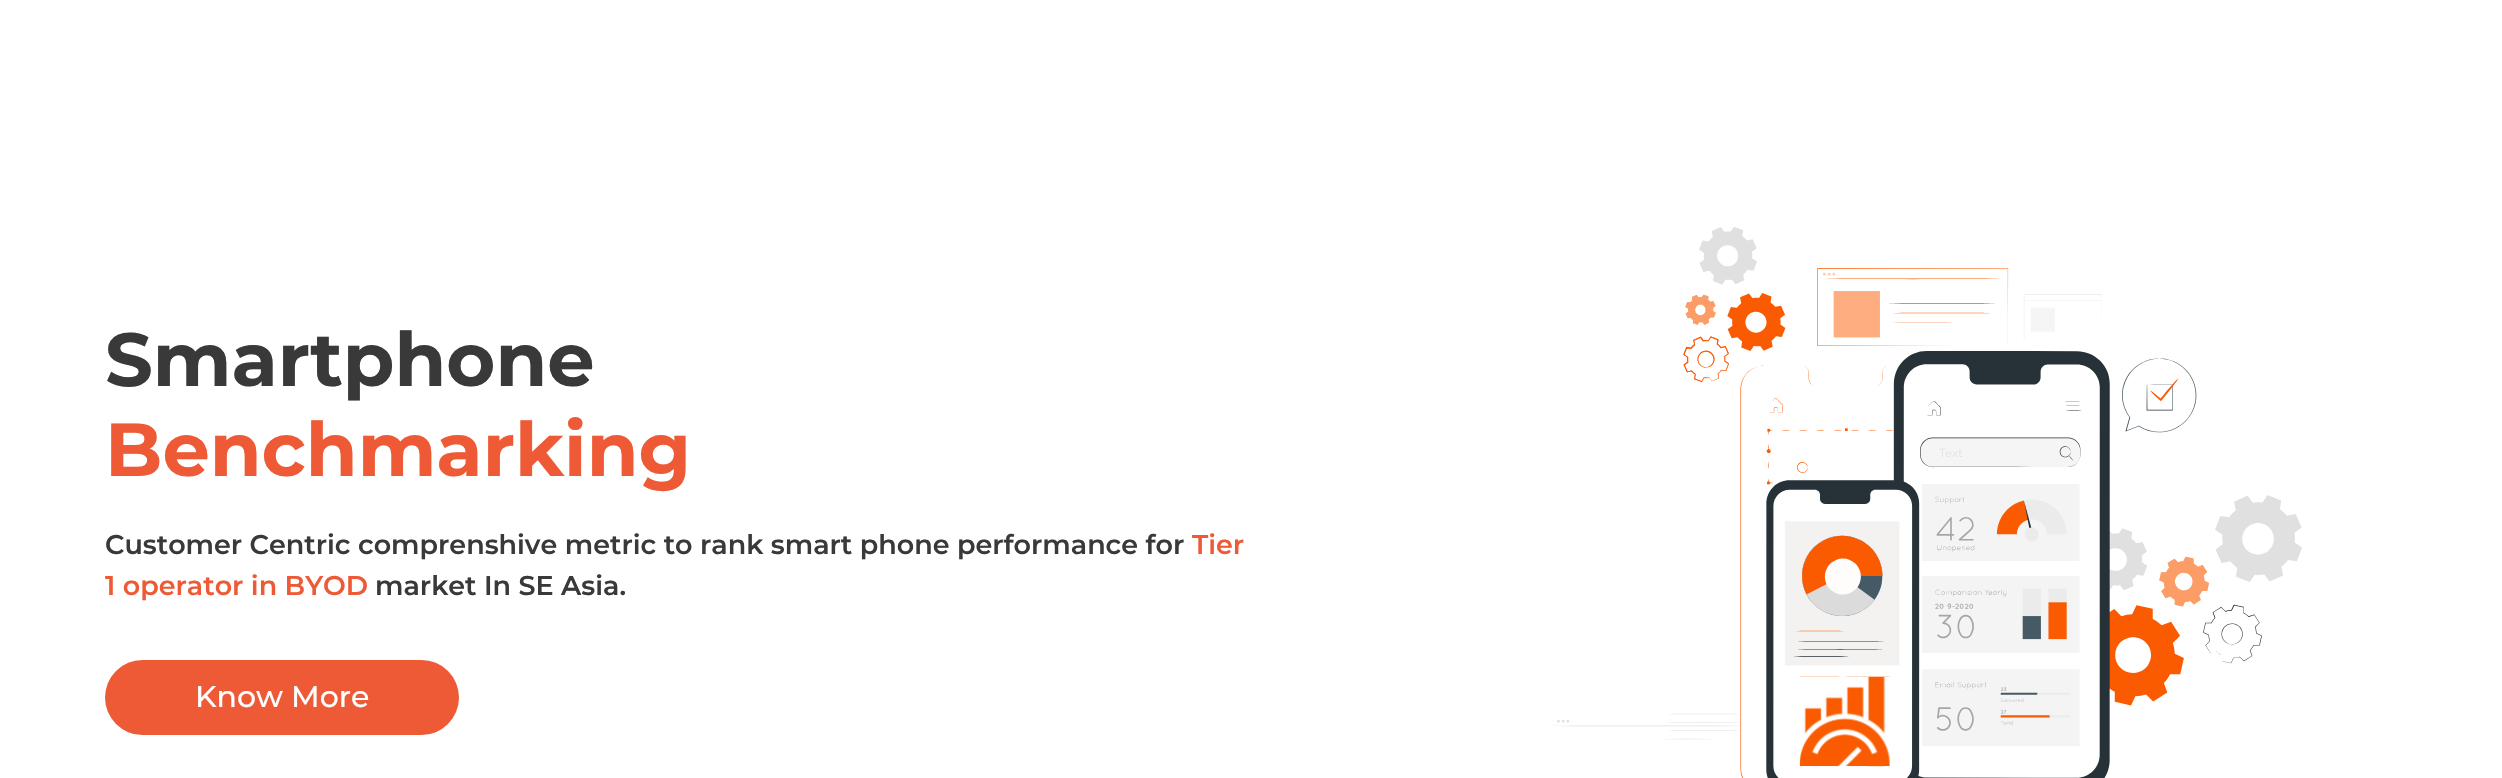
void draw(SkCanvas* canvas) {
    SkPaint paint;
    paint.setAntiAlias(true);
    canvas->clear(0xFFFFFFFF);
    SkFont font1(fontMgr->matchFamilyStyle("Montserrat", SkFontStyle::Bold()), 75);
    font1.setSubpixel(true);
    paint.setColor(0xFF393939);
    canvas->drawString("Smartphone", 105, 386, font1, paint);
    paint.setColor(0xFFEE5A36);
    canvas->drawString("Benchmarking", 105, 476, font1, paint);
    SkFont font2(fontMgr->matchFamilyStyle("Montserrat", SkFontStyle(600, SkFontStyle::kNormal_Width, SkFontStyle::kUpright_Slant)), 27);
    font2.setSubpixel(true);
    paint.setColor(0xFF393939);
    canvas->drawString("Customer Centric comprenshive metric to rank smart phone performance for", 105, 554, font2, paint);
    paint.setColor(0xFFEE5A36);
    canvas->drawString("Tier", 1192, 554, font2, paint);
    canvas->drawString("1 operator in BYOD", 105, 595, font2, paint);
    paint.setColor(0xFF393939);
    canvas->drawString("market In SE Asia.", 375, 595, font2, paint);
    paint.setColor(0xFFEE5A36);
    canvas->drawRoundRect(SkRect::MakeXYWH(105, 660, 354, 75), 37.5f, 37.5f, paint);
    SkFont font3(fontMgr->matchFamilyStyle("Montserrat", SkFontStyle(500, SkFontStyle::kNormal_Width, SkFontStyle::kUpright_Slant)), 30);
    font3.setSubpixel(true);
    paint.setColor(0xFFFFFFFF);
    canvas->drawString("Know More", 195, 707, font3, paint);
    canvas->drawImageRect(SkImages::DeferredFromEncodedData(SkData::MakeFromFileName("img1.png")), SkRect::MakeXYWH(1552, 227, 750, 551), SkSamplingOptions());
}
